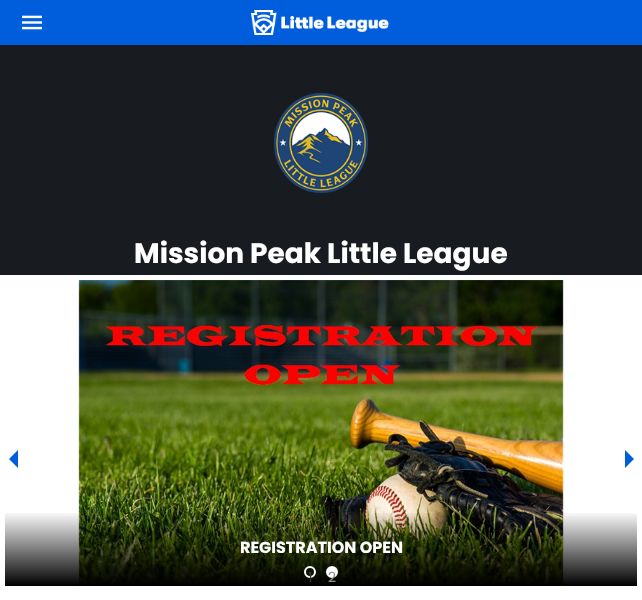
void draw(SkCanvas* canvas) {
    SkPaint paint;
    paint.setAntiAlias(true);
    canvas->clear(0xFF181B1F);
    paint.setColor(0xFF005DDB);
    canvas->drawRect(SkRect::MakeXYWH(0, 0, 642, 45), paint);
    canvas->drawImageRect(SkImages::DeferredFromEncodedData(SkData::MakeFromFileName("img1.png")), SkRect::MakeXYWH(22, 15, 20, 15), SkSamplingOptions());
    canvas->drawImageRect(SkImages::DeferredFromEncodedData(SkData::MakeFromFileName("img2.png")), SkRect::MakeXYWH(251, 10, 138, 25), SkSamplingOptions());
    canvas->drawImageRect(SkImages::DeferredFromEncodedData(SkData::MakeFromFileName("img3.png")), SkRect::MakeXYWH(274, 93, 95, 100), SkSamplingOptions());
    SkFont font1(fontMgr->matchFamilyStyle("Poppins", SkFontStyle::Bold()), 28);
    font1.setSubpixel(true);
    paint.setColor(0xFFFFFFFF);
    canvas->drawString("Mission Peak Little League", 134, 263, font1, paint);
    canvas->drawRect(SkRect::MakeXYWH(0, 275, 642, 325), paint);
    paint.setColor(0xFF005DDB);
    canvas->drawPath(SkPathBuilder().moveTo(18, 450).lineTo(18, 468).lineTo(9, 459).close().detach(), paint);
    canvas->drawPath(SkPathBuilder().moveTo(625, 468).lineTo(625, 450).lineTo(634, 459).close().detach(), paint);
    canvas->drawImageRect(SkImages::DeferredFromEncodedData(SkData::MakeFromFileName("img4.png")), SkRect::MakeXYWH(78, 280, 486, 306), SkSamplingOptions());
    {
        const SkColor colors[] = {0x00000000, 0xFF000000};
        const float stops[] = {0, 1};
        const SkPoint ends[] = {{321, 511}, {321, 586}};
        paint.setShader(SkGradientShader::MakeLinear(ends, colors, stops, 2, SkTileMode::kClamp));
        paint.setAlpha(255);
    }
    canvas->drawRect(SkRect::MakeXYWH(5, 513, 632, 73), paint);
    SkFont font2(fontMgr->matchFamilyStyle("Poppins", SkFontStyle::Bold()), 16);
    font2.setSubpixel(true);
    paint.setShader(nullptr);
    paint.setColor(0xFFFFFFFF);
    canvas->drawString("REGISTRATION OPEN", 240, 553, font2, paint);
    paint.setStyle(SkPaint::kStroke_Style);
    paint.setStrokeWidth(2);
    canvas->drawCircle(310, 572, 5, paint);
    SkFont font3(fontMgr->matchFamilyStyle("Poppins", SkFontStyle::Normal()), 14);
    font3.setSubpixel(true);
    paint.setStyle(SkPaint::kFill_Style);
    paint.setColor(0xFF323429);
    canvas->drawString("1", 308, 582, font3, paint);
    paint.setColor(0xFFFFFFFF);
    canvas->drawCircle(332, 572, 5, paint);
    paint.setStyle(SkPaint::kStroke_Style);
    canvas->drawCircle(332, 572, 5, paint);
    paint.setStyle(SkPaint::kFill_Style);
    paint.setColor(0xFF8E8E8D);
    canvas->drawString("2", 328, 582, font3, paint);
}
